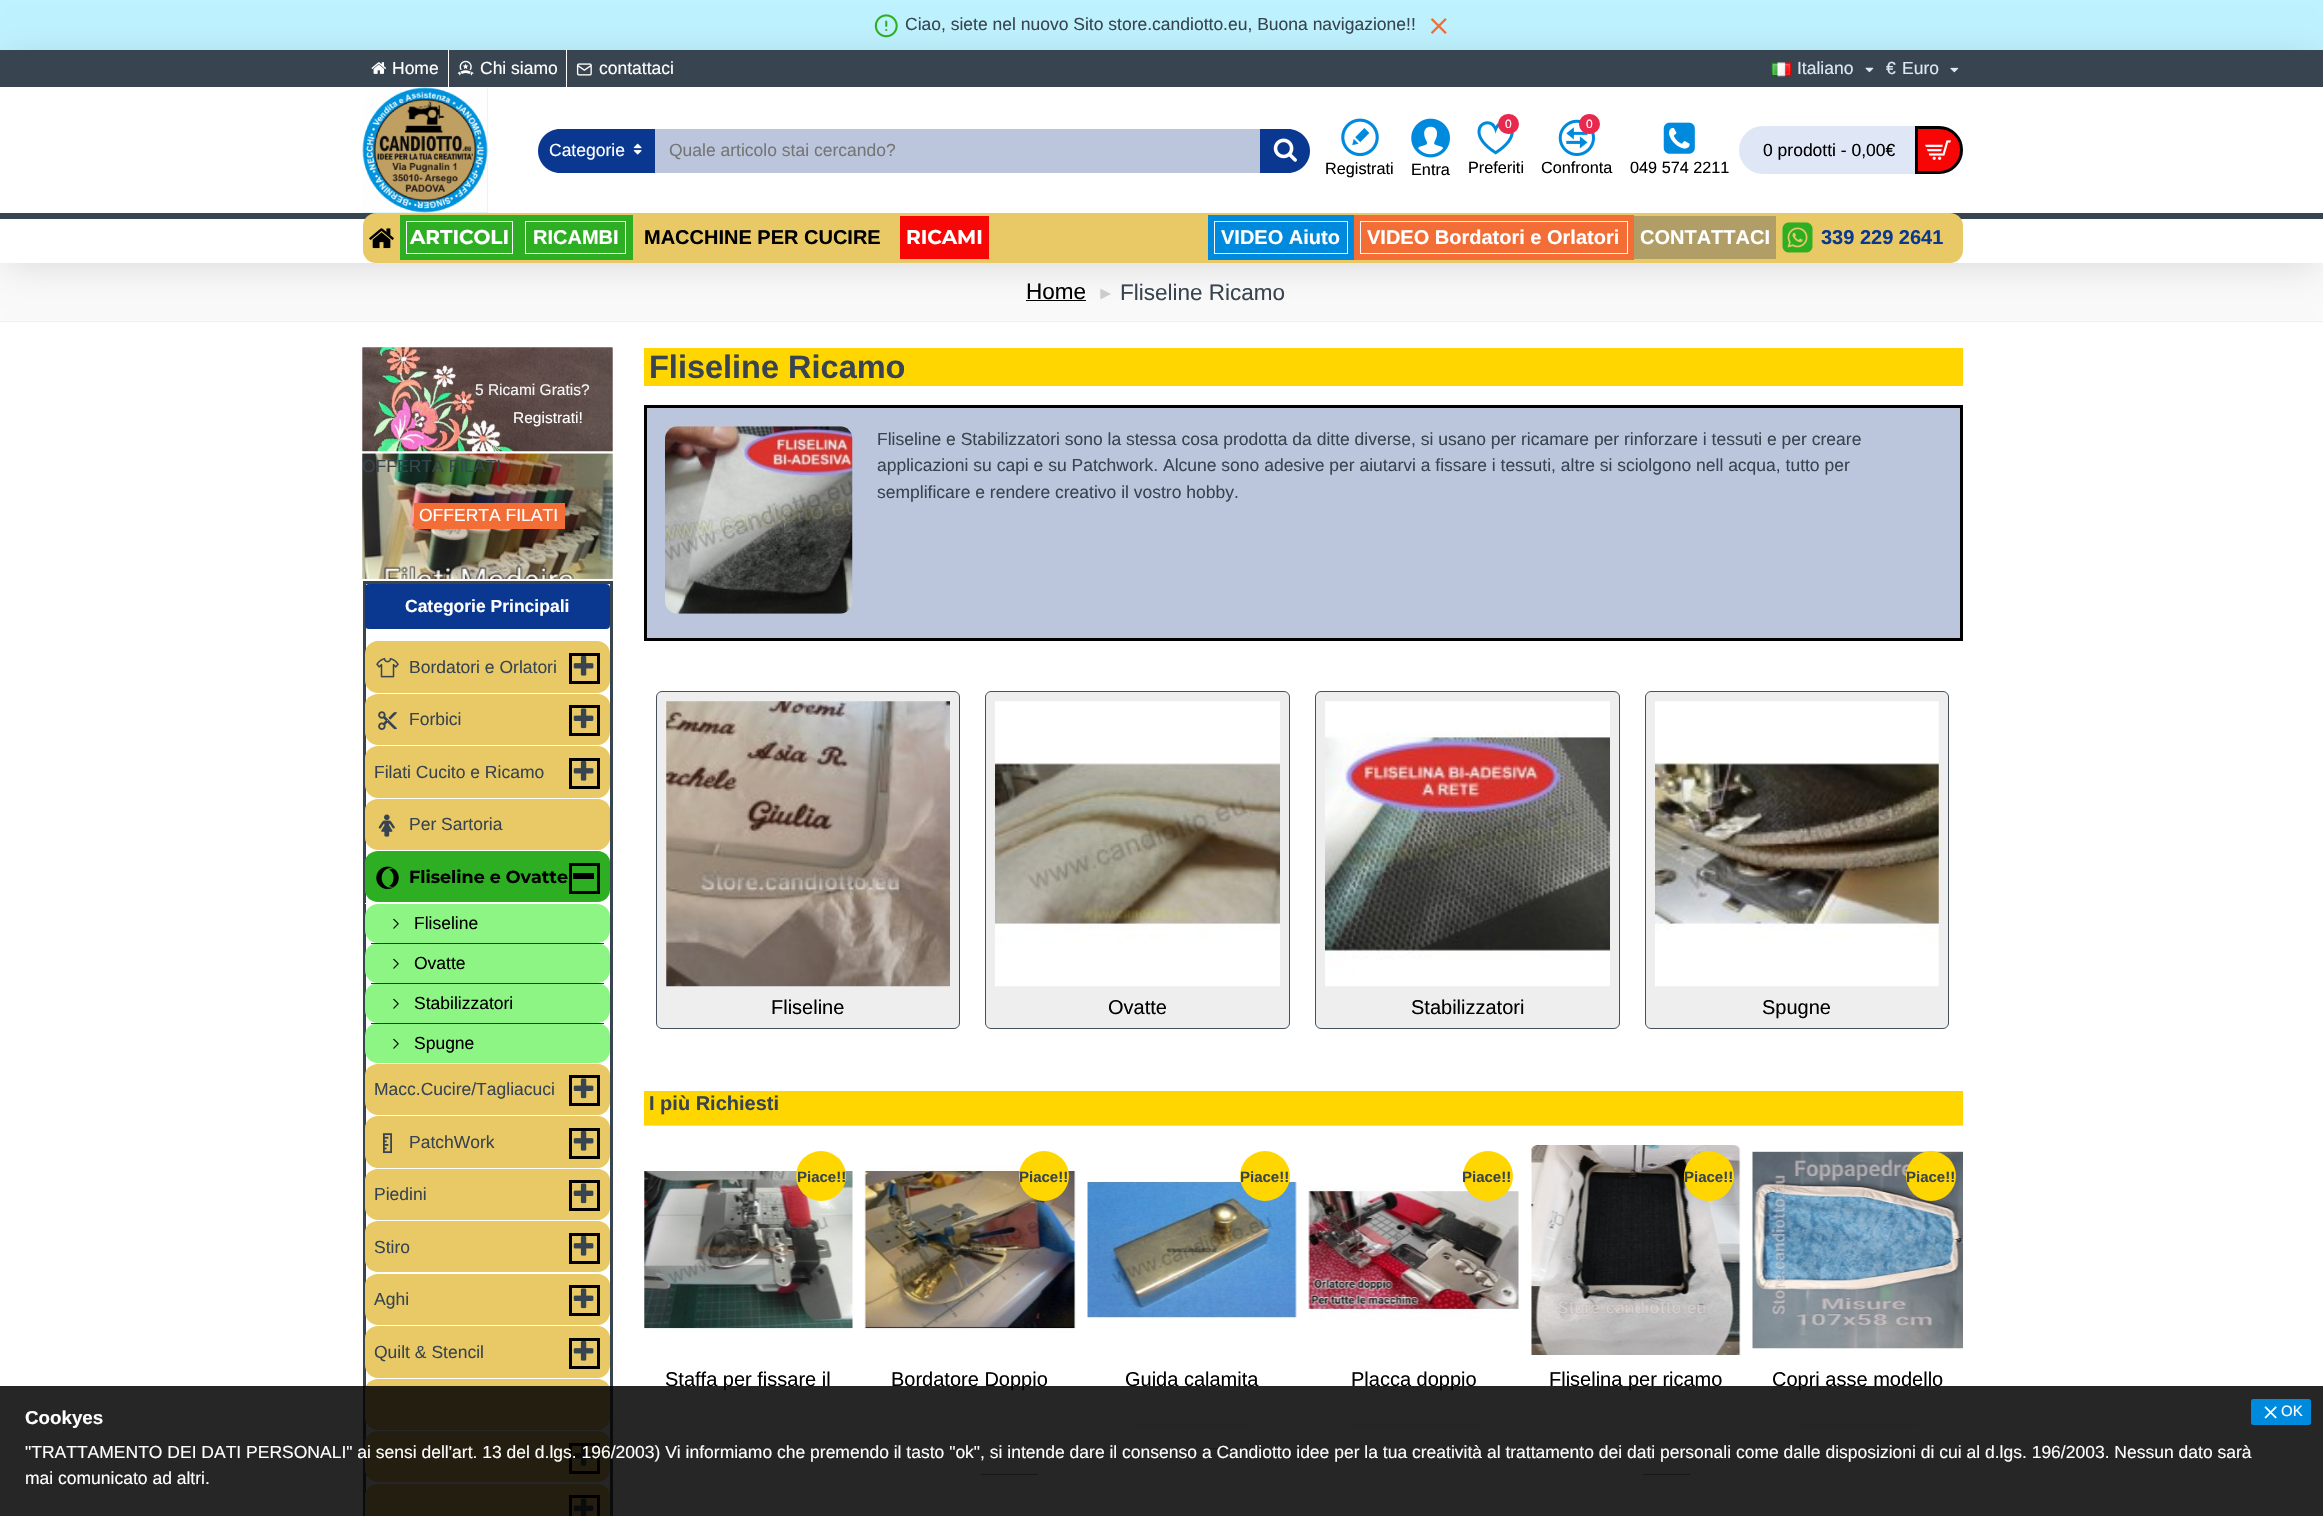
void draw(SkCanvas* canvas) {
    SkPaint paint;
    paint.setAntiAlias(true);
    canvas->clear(0xFFFFFFFF);
    paint.setColor(0xFFBEF2FE);
    canvas->drawRect(SkRect::MakeXYWH(0, 0, 2323, 50), paint);
    canvas->drawImageRect(SkImages::DeferredFromEncodedData(SkData::MakeFromFileName("img1.png")), SkRect::MakeXYWH(874, 14, 24, 24), SkSamplingOptions());
    SkFont font1(fontMgr->matchFamilyStyle("Liberation Sans", SkFontStyle::Normal()), 17.5f);
    font1.setSubpixel(true);
    paint.setColor(0xFF38444F);
    canvas->drawString("Ciao, siete nel nuovo Sito store.candiotto.eu, Buona navigazione!!", 905, 30, font1, paint);
    canvas->drawImageRect(SkImages::DeferredFromEncodedData(SkData::MakeFromFileName("img2.png")), SkRect::MakeXYWH(1430, 18, 17, 16), SkSamplingOptions());
    paint.setColor(0xFFFAFAFA);
    canvas->drawRect(SkRect::MakeXYWH(0, 263, 2323, 58), paint);
    paint.setColor(0xFF000000);
    canvas->drawRect(SkRect::MakeXYWH(1026, 300, 60, 1), paint);
    canvas->save();
    canvas->clipPath(SkPathBuilder(SkPathFillType::kEvenOdd).moveTo(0, 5).lineTo(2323, 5).lineTo(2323, 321).lineTo(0, 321).close().moveTo(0, 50).lineTo(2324, 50).lineTo(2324, 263).lineTo(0, 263).close().detach(), true);
    paint.setColor(0x26000000);
    paint.setMaskFilter(SkMaskFilter::MakeBlur(kNormal_SkBlurStyle, 19));
    canvas->drawRect(SkRect::MakeXYWH(6, 63, 2312, 200), paint);
    paint.setMaskFilter(nullptr);
    canvas->restore();
    paint.setColor(0xFF38444F);
    canvas->drawRect(SkRect::MakeXYWH(0, 50, 2323, 37), paint);
    canvas->drawImageRect(SkImages::DeferredFromEncodedData(SkData::MakeFromFileName("img3.png")), SkRect::MakeXYWH(371, 62, 16, 12), SkSamplingOptions());
    paint.setColor(0xFFFFFFFF);
    canvas->drawString("Home", 392, 74, font1, paint);
    paint.setColor(0xFFBEF2FE);
    canvas->drawRect(SkRect::MakeXYWH(363, 88, 125, 125), paint);
    canvas->drawImageRect(SkImages::DeferredFromEncodedData(SkData::MakeFromFileName("img9.png")), SkRect::MakeXYWH(362, 87, 126, 126), SkSamplingOptions());
    paint.setColor(0xFFFFFFFF);
    canvas->drawRect(SkRect::MakeXYWH(448, 50, 1, 38), paint);
    canvas->drawImageRect(SkImages::DeferredFromEncodedData(SkData::MakeFromFileName("img4.png")), SkRect::MakeXYWH(457, 60, 17, 16), SkSamplingOptions());
    canvas->drawString("Chi siamo", 480, 74, font1, paint);
    canvas->drawRect(SkRect::MakeXYWH(566, 50, 1, 38), paint);
    canvas->drawImageRect(SkImages::DeferredFromEncodedData(SkData::MakeFromFileName("img5.png")), SkRect::MakeXYWH(576, 63, 16, 13), SkSamplingOptions());
    canvas->drawString("contattaci", 599, 74, font1, paint);
    canvas->drawImageRect(SkImages::DeferredFromEncodedData(SkData::MakeFromFileName("img6.png")), SkRect::MakeXYWH(1771, 62, 21, 15), SkSamplingOptions());
    paint.setColor(0xFFDFE7F7);
    canvas->drawString("Italiano", 1797, 74, font1, paint);
    canvas->drawImageRect(SkImages::DeferredFromEncodedData(SkData::MakeFromFileName("img7.png")), SkRect::MakeXYWH(1865, 67, 9, 6), SkSamplingOptions());
    canvas->drawString("€", 1886, 74, font1, paint);
    canvas->drawString("Euro", 1902, 74, font1, paint);
    canvas->drawImageRect(SkImages::DeferredFromEncodedData(SkData::MakeFromFileName("img8.png")), SkRect::MakeXYWH(1950, 67, 9, 6), SkSamplingOptions());
    paint.setColor(0xFF0A378F);
    canvas->drawPath(SkPathBuilder().moveTo(560, 129).lineTo(655, 129).lineTo(655, 173).lineTo(560, 173).cubicTo(548, 173, 538, 163, 538, 151).cubicTo(538, 139, 548, 129, 560, 129).close().detach(), paint);
    paint.setColor(0xFFFFFFFF);
    canvas->drawString("Categorie", 549, 156, font1, paint);
    canvas->drawImageRect(SkImages::DeferredFromEncodedData(SkData::MakeFromFileName("img10.png")), SkRect::MakeXYWH(633, 143, 9, 12), SkSamplingOptions());
    paint.setColor(0xFFBBC6DD);
    canvas->drawRect(SkRect::MakeXYWH(655, 129, 605, 44), paint);
    paint.setColor(0xFF757575);
    canvas->drawString("Quale articolo stai cercando?", 669, 156, font1, paint);
    paint.setColor(0xFF0A378F);
    canvas->drawPath(SkPathBuilder().moveTo(1260, 129).lineTo(1288, 129).cubicTo(1300, 129, 1310, 139, 1310, 151).cubicTo(1310, 163, 1300, 173, 1288, 173).lineTo(1260, 173).close().detach(), paint);
    canvas->drawImageRect(SkImages::DeferredFromEncodedData(SkData::MakeFromFileName("img11.png")), SkRect::MakeXYWH(1273, 138, 24, 24), SkSamplingOptions());
    canvas->drawImageRect(SkImages::DeferredFromEncodedData(SkData::MakeFromFileName("img12.png")), SkRect::MakeXYWH(1341, 118, 38, 39), SkSamplingOptions());
    SkFont font2(fontMgr->matchFamilyStyle("Liberation Sans", SkFontStyle::Normal()), 16.25f);
    font2.setSubpixel(true);
    paint.setColor(0xFF000000);
    canvas->drawString("Registrati", 1325, 174, font2, paint);
    canvas->drawImageRect(SkImages::DeferredFromEncodedData(SkData::MakeFromFileName("img13.png")), SkRect::MakeXYWH(1411, 118, 39, 40), SkSamplingOptions());
    canvas->drawString("Entra", 1411, 175, font2, paint);
    canvas->drawImageRect(SkImages::DeferredFromEncodedData(SkData::MakeFromFileName("img14.png")), SkRect::MakeXYWH(1477, 121, 37, 34), SkSamplingOptions());
    paint.setColor(0xFFE8284D);
    canvas->drawRoundRect(SkRect::MakeXYWH(1498, 114, 21, 20), 10, 10, paint);
    SkFont font3(fontMgr->matchFamilyStyle("Liberation Sans", SkFontStyle::Normal()), 12);
    font3.setSubpixel(true);
    paint.setColor(0xFFFFFFFF);
    canvas->drawString("0", 1505, 128, font3, paint);
    paint.setColor(0xFF000000);
    canvas->drawString("Preferiti", 1468, 173, font2, paint);
    canvas->drawImageRect(SkImages::DeferredFromEncodedData(SkData::MakeFromFileName("img15.png")), SkRect::MakeXYWH(1558, 119, 37, 37), SkSamplingOptions());
    paint.setColor(0xFFE8284D);
    canvas->drawRoundRect(SkRect::MakeXYWH(1579, 114, 21, 20), 10, 10, paint);
    paint.setColor(0xFFFFFFFF);
    canvas->drawString("0", 1586, 128, font3, paint);
    paint.setColor(0xFF000000);
    canvas->drawString("Confronta", 1541, 173, font2, paint);
    canvas->drawImageRect(SkImages::DeferredFromEncodedData(SkData::MakeFromFileName("img16.png")), SkRect::MakeXYWH(1663, 122, 32, 32), SkSamplingOptions());
    canvas->drawString("049 574 2211", 1630, 173, font2, paint);
    paint.setColor(0xFFDFE7F7);
    canvas->drawRoundRect(SkRect::MakeXYWH(1739, 126, 224, 48), 24, 24, paint);
    paint.setColor(0xFF000000);
    canvas->drawString("0 prodotti - 0,00€", 1763, 156, font1, paint);
    paint.setColor(0xFFF80505);
    canvas->drawPath(SkPathBuilder().moveTo(1916.5f, 127.5f).lineTo(1939, 127.5f).cubicTo(1951.5f, 127.5f, 1961.5f, 137.5f, 1961.5f, 150).cubicTo(1961.5f, 162.5f, 1951.5f, 172.5f, 1939, 172.5f).lineTo(1916.5f, 172.5f).close().detach(), paint);
    paint.setStyle(SkPaint::kStroke_Style);
    paint.setStrokeWidth(3);
    paint.setColor(0xFF000000);
    canvas->drawPath(SkPathBuilder().moveTo(1916.5f, 127.5f).lineTo(1939, 127.5f).cubicTo(1951.5f, 127.5f, 1961.5f, 137.5f, 1961.5f, 150).cubicTo(1961.5f, 162.5f, 1951.5f, 172.5f, 1939, 172.5f).lineTo(1916.5f, 172.5f).close().detach(), paint);
    canvas->drawImageRect(SkImages::DeferredFromEncodedData(SkData::MakeFromFileName("img17.png")), SkRect::MakeXYWH(1925, 140, 26, 20), SkSamplingOptions());
    paint.setStyle(SkPaint::kFill_Style);
    paint.setColor(0xFF38444F);
    canvas->drawRect(SkRect::MakeXYWH(0, 213, 2323, 6), paint);
    paint.setColor(0xFFE9C965);
    canvas->drawRoundRect(SkRect::MakeXYWH(363, 213, 1600, 50), 13, 13, paint);
    canvas->drawImageRect(SkImages::DeferredFromEncodedData(SkData::MakeFromFileName("img18.png")), SkRect::MakeXYWH(369, 228, 25, 21), SkSamplingOptions());
    paint.setColor(0xFF2EAF23);
    canvas->drawRect(SkRect::MakeXYWH(400, 215, 233, 45), paint);
    paint.setStyle(SkPaint::kStroke_Style);
    paint.setStrokeWidth(1);
    paint.setColor(0xFFF7F9FF);
    canvas->drawRect(SkRect::MakeXYWH(406.5f, 221.5f, 106, 32), paint);
    SkFont font4(fontMgr->matchFamilyStyle("Montserrat", SkFontStyle::Bold()), 20);
    font4.setSubpixel(true);
    paint.setStyle(SkPaint::kFill_Style);
    paint.setColor(0xFFFFFFFF);
    canvas->drawString("ARTICOLI", 410, 244, font4, paint);
    paint.setStyle(SkPaint::kStroke_Style);
    paint.setColor(0xFFF7F9FF);
    canvas->drawRect(SkRect::MakeXYWH(525.5f, 221.5f, 100, 32), paint);
    SkFont font5(fontMgr->matchFamilyStyle("Liberation Sans", SkFontStyle::Bold()), 20);
    font5.setSubpixel(true);
    paint.setStyle(SkPaint::kFill_Style);
    paint.setColor(0xFFFFFFFF);
    canvas->drawString("RICAMBI", 533, 244, font5, paint);
    paint.setColor(0xFF000000);
    canvas->drawString("MACCHINE PER CUCIRE", 644, 244, font5, paint);
    paint.setColor(0xFFF80505);
    canvas->drawRect(SkRect::MakeXYWH(900, 216, 89, 43), paint);
    paint.setColor(0xFFFFFFFF);
    canvas->drawString("RICAMI", 906, 244, font4, paint);
    paint.setColor(0xFF008ADD);
    canvas->drawRect(SkRect::MakeXYWH(1208, 215, 146, 45), paint);
    paint.setStyle(SkPaint::kStroke_Style);
    paint.setColor(0xFFF7F9FF);
    canvas->drawRect(SkRect::MakeXYWH(1214.5f, 221.5f, 133, 32), paint);
    paint.setStyle(SkPaint::kFill_Style);
    paint.setColor(0xFFFFFFFF);
    canvas->drawString("VIDEO Aiuto", 1221, 244, font5, paint);
    paint.setColor(0xFFF36D37);
    canvas->drawRect(SkRect::MakeXYWH(1354, 215, 280, 45), paint);
    paint.setStyle(SkPaint::kStroke_Style);
    paint.setColor(0xFFF7F9FF);
    canvas->drawRect(SkRect::MakeXYWH(1360.5f, 221.5f, 267, 32), paint);
    paint.setStyle(SkPaint::kFill_Style);
    paint.setColor(0xFFFFFFFF);
    canvas->drawString("VIDEO Bordatori e Orlatori", 1367, 244, font5, paint);
    paint.setColor(0xFFB09E66);
    canvas->drawRect(SkRect::MakeXYWH(1634, 216, 142, 43), paint);
    paint.setColor(0xFFFFFFFF);
    canvas->drawString("CONTATTACI", 1640, 244, font5, paint);
    canvas->drawImageRect(SkImages::DeferredFromEncodedData(SkData::MakeFromFileName("img19.png")), SkRect::MakeXYWH(1782, 222, 31, 31), SkSamplingOptions());
    paint.setColor(0xFF0A378F);
    canvas->drawString("339 229 2641", 1821, 244, font5, paint);
    paint.setColor(0xFFEEEEEE);
    canvas->drawRect(SkRect::MakeXYWH(0, 321, 2323, 1), paint);
    SkFont font6(fontMgr->matchFamilyStyle("Liberation Sans", SkFontStyle::Normal()), 22.5f);
    font6.setSubpixel(true);
    paint.setColor(0xFF000000);
    canvas->drawString("Home", 1026, 299, font6, paint);
    paint.setColor(0xFFCCCCCC);
    canvas->drawString("►", 1097, 299, font1, paint);
    paint.setColor(0xFF38444F);
    canvas->drawString("Fliseline Ricamo", 1120, 300, font6, paint);
    canvas->drawImageRect(SkImages::DeferredFromEncodedData(SkData::MakeFromFileName("img20.png")), SkRect::MakeXYWH(362, 347, 251, 105), SkSamplingOptions());
    canvas->drawImageRect(SkImages::DeferredFromEncodedData(SkData::MakeFromFileName("img21.png")), SkRect::MakeXYWH(362, 347, 251, 105), SkSamplingOptions());
    SkFont font7(fontMgr->matchFamilyStyle("Liberation Sans", SkFontStyle::Normal()), 15.5f);
    font7.setSubpixel(true);
    paint.setColor(0xFFF5F5F5);
    canvas->drawString("5 Ricami Gratis?", 475, 395, font7, paint);
    paint.setColor(0xFFFFFFFF);
    canvas->drawString("Registrati!", 513, 423, font7, paint);
    canvas->drawImageRect(SkImages::DeferredFromEncodedData(SkData::MakeFromFileName("img22.png")), SkRect::MakeXYWH(362, 453, 251, 126), SkSamplingOptions());
    canvas->drawImageRect(SkImages::DeferredFromEncodedData(SkData::MakeFromFileName("img23.png")), SkRect::MakeXYWH(362, 453, 251, 126), SkSamplingOptions());
    paint.setColor(0xFF38444F);
    canvas->drawString("OFFERTA FILATI", 362, 472, font1, paint);
    paint.setColor(0xFFF36D37);
    canvas->drawRect(SkRect::MakeXYWH(414, 503, 151, 26), paint);
    paint.setColor(0xFFFFFFFF);
    canvas->drawString("OFFERTA FILATI", 419, 521, font1, paint);
    paint.setStyle(SkPaint::kStroke_Style);
    paint.setStrokeWidth(3);
    paint.setColor(0xFF38444F);
    canvas->drawRect(SkRect::MakeXYWH(364.5f, 582.5f, 247, 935), paint);
    paint.setStyle(SkPaint::kFill_Style);
    paint.setColor(0xFF0A378F);
    canvas->drawRoundRect(SkRect::MakeXYWH(365, 584, 245, 45), 4, 4, paint);
    SkFont font8(fontMgr->matchFamilyStyle("Liberation Sans", SkFontStyle::Bold()), 17.5f);
    font8.setSubpixel(true);
    paint.setColor(0xFFFFFFFF);
    canvas->drawString("Categorie Principali", 405, 612, font8, paint);
    paint.setColor(0xFFE9C965);
    canvas->drawRoundRect(SkRect::MakeXYWH(365, 641, 245, 52), 13, 13, paint);
    canvas->drawImageRect(SkImages::DeferredFromEncodedData(SkData::MakeFromFileName("img24.png")), SkRect::MakeXYWH(376, 657, 23, 21), SkSamplingOptions());
    paint.setColor(0xFF38444F);
    canvas->drawString("Bordatori e Orlatori", 409, 673, font1, paint);
    paint.setStyle(SkPaint::kStroke_Style);
    paint.setColor(0xFF000000);
    canvas->drawRect(SkRect::MakeXYWH(570.5f, 654.5f, 28, 28), paint);
    canvas->drawImageRect(SkImages::DeferredFromEncodedData(SkData::MakeFromFileName("img25.png")), SkRect::MakeXYWH(573, 656, 21, 20), SkSamplingOptions());
    paint.setStyle(SkPaint::kFill_Style);
    paint.setColor(0xFFE9C965);
    canvas->drawPath(SkPathBuilder().moveTo(378, 694).lineTo(598, 694).cubicTo(604, 694, 610, 699, 610, 705).lineTo(610, 732).cubicTo(610, 739, 604, 745, 598, 745).lineTo(378, 745).cubicTo(371, 745, 365, 739, 365, 732).lineTo(365, 705).cubicTo(365, 699, 371, 694, 378, 694).close().detach(), paint);
    canvas->drawImageRect(SkImages::DeferredFromEncodedData(SkData::MakeFromFileName("img26.png")), SkRect::MakeXYWH(378, 711, 19, 19), SkSamplingOptions());
    paint.setColor(0xFF38444F);
    canvas->drawString("Forbici", 409, 725, font1, paint);
    paint.setStyle(SkPaint::kStroke_Style);
    paint.setColor(0xFF000000);
    canvas->drawRect(SkRect::MakeXYWH(570.5f, 706.5f, 28, 28), paint);
    canvas->drawImageRect(SkImages::DeferredFromEncodedData(SkData::MakeFromFileName("img27.png")), SkRect::MakeXYWH(573, 708, 21, 21), SkSamplingOptions());
    paint.setStyle(SkPaint::kFill_Style);
    paint.setColor(0xFFE9C965);
    canvas->drawPath(SkPathBuilder().moveTo(378, 746).lineTo(598, 746).cubicTo(604, 746, 610, 751, 610, 758).lineTo(610, 785).cubicTo(610, 792, 604, 798, 598, 798).lineTo(378, 798).cubicTo(371, 798, 365, 792, 365, 785).lineTo(365, 758).cubicTo(365, 751, 371, 746, 378, 746).close().detach(), paint);
    paint.setColor(0xFF38444F);
    canvas->drawString("Filati Cucito e Ricamo", 374, 778, font1, paint);
    paint.setStyle(SkPaint::kStroke_Style);
    paint.setColor(0xFF000000);
    canvas->drawRect(SkRect::MakeXYWH(570.5f, 759.5f, 28, 28), paint);
    canvas->drawImageRect(SkImages::DeferredFromEncodedData(SkData::MakeFromFileName("img25.png")), SkRect::MakeXYWH(573, 761, 21, 20), SkSamplingOptions());
    paint.setStyle(SkPaint::kFill_Style);
    paint.setColor(0xFFE9C965);
    canvas->drawPath(SkPathBuilder().moveTo(378, 799).lineTo(598, 799).cubicTo(604, 799, 610, 804, 610, 810).lineTo(610, 838).cubicTo(610, 844, 604, 850, 598, 850).lineTo(378, 850).cubicTo(371, 850, 365, 844, 365, 838).lineTo(365, 810).cubicTo(365, 804, 371, 799, 378, 799).close().detach(), paint);
    canvas->drawImageRect(SkImages::DeferredFromEncodedData(SkData::MakeFromFileName("img28.png")), SkRect::MakeXYWH(378, 814, 17, 23), SkSamplingOptions());
    paint.setColor(0xFF38444F);
    canvas->drawString("Per Sartoria", 409, 830, font1, paint);
    paint.setColor(0xFF2EAF23);
    canvas->drawPath(SkPathBuilder().moveTo(378, 851).lineTo(598, 851).cubicTo(604, 851, 610, 856, 610, 862).lineTo(610, 890).cubicTo(610, 897, 604, 902, 598, 902).lineTo(378, 902).cubicTo(371, 902, 365, 897, 365, 890).lineTo(365, 862).cubicTo(365, 856, 371, 851, 378, 851).close().detach(), paint);
    canvas->drawImageRect(SkImages::DeferredFromEncodedData(SkData::MakeFromFileName("img29.png")), SkRect::MakeXYWH(376, 866, 23, 24), SkSamplingOptions());
    SkFont font9(fontMgr->matchFamilyStyle("Montserrat", SkFontStyle::Bold()), 17.5f);
    font9.setSubpixel(true);
    paint.setColor(0xFF000000);
    canvas->drawString("Fliseline e Ovatte", 409, 883, font9, paint);
    paint.setStyle(SkPaint::kStroke_Style);
    canvas->drawRect(SkRect::MakeXYWH(570.5f, 864.5f, 28, 28), paint);
    paint.setStyle(SkPaint::kFill_Style);
    canvas->drawRect(SkRect::MakeXYWH(573, 873, 21, 6), paint);
    paint.setColor(0xFFFFFFFF);
    canvas->drawRect(SkRect::MakeXYWH(365, 903, 1, 1), paint);
    paint.setColor(0xFF8DF584);
    canvas->drawRoundRect(SkRect::MakeXYWH(365, 904, 245, 39), 13, 13, paint);
    canvas->drawImageRect(SkImages::DeferredFromEncodedData(SkData::MakeFromFileName("img30.png")), SkRect::MakeXYWH(393, 918, 6, 11), SkSamplingOptions());
    paint.setColor(0xFF000000);
    canvas->drawString("Fliseline", 414, 929, font1, paint);
    paint.setColor(0xFF8DF584);
    canvas->drawRoundRect(SkRect::MakeXYWH(365, 943, 245, 40), 13, 13, paint);
    paint.setColor(0xBF000000);
    canvas->drawRect(SkRect::MakeXYWH(371, 943, 233, 1), paint);
    canvas->drawImageRect(SkImages::DeferredFromEncodedData(SkData::MakeFromFileName("img30.png")), SkRect::MakeXYWH(393, 958, 6, 11), SkSamplingOptions());
    paint.setColor(0xFF000000);
    canvas->drawString("Ovatte", 414, 969, font1, paint);
    paint.setColor(0xFF8DF584);
    canvas->drawRoundRect(SkRect::MakeXYWH(365, 983, 245, 40), 13, 13, paint);
    paint.setColor(0xBF000000);
    canvas->drawRect(SkRect::MakeXYWH(371, 983, 233, 1), paint);
    canvas->drawImageRect(SkImages::DeferredFromEncodedData(SkData::MakeFromFileName("img30.png")), SkRect::MakeXYWH(393, 998, 6, 11), SkSamplingOptions());
    paint.setColor(0xFF000000);
    canvas->drawString("Stabilizzatori", 414, 1009, font1, paint);
    paint.setColor(0xFF8DF584);
    canvas->drawRoundRect(SkRect::MakeXYWH(365, 1023, 245, 40), 13, 13, paint);
    paint.setColor(0xBF000000);
    canvas->drawRect(SkRect::MakeXYWH(371, 1023, 233, 1), paint);
    canvas->drawImageRect(SkImages::DeferredFromEncodedData(SkData::MakeFromFileName("img30.png")), SkRect::MakeXYWH(393, 1038, 6, 11), SkSamplingOptions());
    paint.setColor(0xFF000000);
    canvas->drawString("Spugne", 414, 1049, font1, paint);
    paint.setColor(0xFFE9C965);
    canvas->drawPath(SkPathBuilder().moveTo(378, 1064).lineTo(598, 1064).cubicTo(604, 1064, 610, 1069, 610, 1075).lineTo(610, 1102).cubicTo(610, 1109, 604, 1115, 598, 1115).lineTo(378, 1115).cubicTo(371, 1115, 365, 1109, 365, 1102).lineTo(365, 1075).cubicTo(365, 1069, 371, 1064, 378, 1064).close().detach(), paint);
    paint.setColor(0xFF38444F);
    canvas->drawString("Macc.Cucire/Tagliacuci", 374, 1095, font1, paint);
    paint.setStyle(SkPaint::kStroke_Style);
    paint.setColor(0xFF000000);
    canvas->drawRect(SkRect::MakeXYWH(570.5f, 1076.5f, 28, 28), paint);
    canvas->drawImageRect(SkImages::DeferredFromEncodedData(SkData::MakeFromFileName("img27.png")), SkRect::MakeXYWH(573, 1078, 21, 21), SkSamplingOptions());
    paint.setStyle(SkPaint::kFill_Style);
    paint.setColor(0xFFE9C965);
    canvas->drawPath(SkPathBuilder().moveTo(378, 1116).lineTo(598, 1116).cubicTo(604, 1116, 610, 1121, 610, 1128).lineTo(610, 1155).cubicTo(610, 1162, 604, 1168, 598, 1168).lineTo(378, 1168).cubicTo(371, 1168, 365, 1162, 365, 1155).lineTo(365, 1128).cubicTo(365, 1121, 371, 1116, 378, 1116).close().detach(), paint);
    canvas->drawImageRect(SkImages::DeferredFromEncodedData(SkData::MakeFromFileName("img31.png")), SkRect::MakeXYWH(383, 1133, 9, 21), SkSamplingOptions());
    paint.setColor(0xFF38444F);
    canvas->drawString("PatchWork", 409, 1148, font1, paint);
    paint.setStyle(SkPaint::kStroke_Style);
    paint.setColor(0xFF000000);
    canvas->drawRect(SkRect::MakeXYWH(570.5f, 1129.5f, 28, 28), paint);
    canvas->drawImageRect(SkImages::DeferredFromEncodedData(SkData::MakeFromFileName("img25.png")), SkRect::MakeXYWH(573, 1131, 21, 20), SkSamplingOptions());
    paint.setStyle(SkPaint::kFill_Style);
    paint.setColor(0xFFE9C965);
    canvas->drawPath(SkPathBuilder().moveTo(378, 1169).lineTo(598, 1169).cubicTo(604, 1169, 610, 1174, 610, 1180).lineTo(610, 1208).cubicTo(610, 1214, 604, 1220, 598, 1220).lineTo(378, 1220).cubicTo(371, 1220, 365, 1214, 365, 1208).lineTo(365, 1180).cubicTo(365, 1174, 371, 1169, 378, 1169).close().detach(), paint);
    paint.setColor(0xFF38444F);
    canvas->drawString("Piedini", 374, 1200, font1, paint);
    paint.setStyle(SkPaint::kStroke_Style);
    paint.setColor(0xFF000000);
    canvas->drawRect(SkRect::MakeXYWH(570.5f, 1181.5f, 28, 28), paint);
    canvas->drawImageRect(SkImages::DeferredFromEncodedData(SkData::MakeFromFileName("img27.png")), SkRect::MakeXYWH(573, 1183, 21, 21), SkSamplingOptions());
    paint.setStyle(SkPaint::kFill_Style);
    paint.setColor(0xFFE9C965);
    canvas->drawPath(SkPathBuilder().moveTo(378, 1221).lineTo(598, 1221).cubicTo(604, 1221, 610, 1226, 610, 1232).lineTo(610, 1260).cubicTo(610, 1267, 604, 1272, 598, 1272).lineTo(378, 1272).cubicTo(371, 1272, 365, 1267, 365, 1260).lineTo(365, 1232).cubicTo(365, 1226, 371, 1221, 378, 1221).close().detach(), paint);
    paint.setColor(0xFF38444F);
    canvas->drawString("Stiro", 374, 1253, font1, paint);
    paint.setStyle(SkPaint::kStroke_Style);
    paint.setColor(0xFF000000);
    canvas->drawRect(SkRect::MakeXYWH(570.5f, 1234.5f, 28, 28), paint);
    canvas->drawImageRect(SkImages::DeferredFromEncodedData(SkData::MakeFromFileName("img25.png")), SkRect::MakeXYWH(573, 1236, 21, 20), SkSamplingOptions());
    paint.setStyle(SkPaint::kFill_Style);
    paint.setColor(0xFFE9C965);
    canvas->drawPath(SkPathBuilder().moveTo(378, 1274).lineTo(598, 1274).cubicTo(604, 1274, 610, 1279, 610, 1285).lineTo(610, 1312).cubicTo(610, 1319, 604, 1325, 598, 1325).lineTo(378, 1325).cubicTo(371, 1325, 365, 1319, 365, 1312).lineTo(365, 1285).cubicTo(365, 1279, 371, 1274, 378, 1274).close().detach(), paint);
    paint.setColor(0xFF38444F);
    canvas->drawString("Aghi", 374, 1305, font1, paint);
    paint.setStyle(SkPaint::kStroke_Style);
    paint.setColor(0xFF000000);
    canvas->drawRect(SkRect::MakeXYWH(570.5f, 1286.5f, 28, 28), paint);
    canvas->drawImageRect(SkImages::DeferredFromEncodedData(SkData::MakeFromFileName("img27.png")), SkRect::MakeXYWH(573, 1288, 21, 21), SkSamplingOptions());
    paint.setStyle(SkPaint::kFill_Style);
    paint.setColor(0xFFE9C965);
    canvas->drawPath(SkPathBuilder().moveTo(378, 1326).lineTo(598, 1326).cubicTo(604, 1326, 610, 1331, 610, 1338).lineTo(610, 1365).cubicTo(610, 1372, 604, 1378, 598, 1378).lineTo(378, 1378).cubicTo(371, 1378, 365, 1372, 365, 1365).lineTo(365, 1338).cubicTo(365, 1331, 371, 1326, 378, 1326).close().detach(), paint);
    paint.setColor(0xFF38444F);
    canvas->drawString("Quilt & Stencil", 374, 1358, font1, paint);
    paint.setStyle(SkPaint::kStroke_Style);
    paint.setColor(0xFF000000);
    canvas->drawRect(SkRect::MakeXYWH(570.5f, 1339.5f, 28, 28), paint);
    canvas->drawImageRect(SkImages::DeferredFromEncodedData(SkData::MakeFromFileName("img25.png")), SkRect::MakeXYWH(573, 1341, 21, 20), SkSamplingOptions());
    paint.setStyle(SkPaint::kFill_Style);
    paint.setColor(0xFFE9C965);
    canvas->drawPath(SkPathBuilder().moveTo(378, 1379).lineTo(598, 1379).cubicTo(604, 1379, 610, 1384, 610, 1390).lineTo(610, 1418).cubicTo(610, 1424, 604, 1430, 598, 1430).lineTo(378, 1430).cubicTo(371, 1430, 365, 1424, 365, 1418).lineTo(365, 1390).cubicTo(365, 1384, 371, 1379, 378, 1379).close().detach(), paint);
    canvas->drawPath(SkPathBuilder().moveTo(378, 1431).lineTo(598, 1431).cubicTo(604, 1431, 610, 1436, 610, 1442).lineTo(610, 1470).cubicTo(610, 1477, 604, 1482, 598, 1482).lineTo(378, 1482).cubicTo(371, 1482, 365, 1477, 365, 1470).lineTo(365, 1442).cubicTo(365, 1436, 371, 1431, 378, 1431).close().detach(), paint);
    paint.setStyle(SkPaint::kStroke_Style);
    paint.setColor(0xFF000000);
    canvas->drawRect(SkRect::MakeXYWH(570.5f, 1444.5f, 28, 28), paint);
    canvas->drawImageRect(SkImages::DeferredFromEncodedData(SkData::MakeFromFileName("img25.png")), SkRect::MakeXYWH(573, 1446, 21, 20), SkSamplingOptions());
    paint.setStyle(SkPaint::kFill_Style);
    paint.setColor(0xFFE9C965);
    canvas->drawPath(SkPathBuilder().moveTo(378, 1484).lineTo(598, 1484).cubicTo(604, 1484, 610, 1489, 610, 1495).lineTo(610, 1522).cubicTo(610, 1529, 604, 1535, 598, 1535).lineTo(378, 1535).cubicTo(371, 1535, 365, 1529, 365, 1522).lineTo(365, 1495).cubicTo(365, 1489, 371, 1484, 378, 1484).close().detach(), paint);
    paint.setStyle(SkPaint::kStroke_Style);
    paint.setColor(0xFF000000);
    canvas->drawRect(SkRect::MakeXYWH(570.5f, 1496.5f, 28, 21), paint);
    canvas->drawImageRect(SkImages::DeferredFromEncodedData(SkData::MakeFromFileName("img32.png")), SkRect::MakeXYWH(573, 1498, 21, 18), SkSamplingOptions());
    paint.setStyle(SkPaint::kFill_Style);
    paint.setColor(0xFFFFD600);
    canvas->drawRect(SkRect::MakeXYWH(644, 348, 1319, 38), paint);
    SkFont font10(fontMgr->matchFamilyStyle("Liberation Sans", SkFontStyle::Bold()), 32.5f);
    font10.setSubpixel(true);
    paint.setColor(0xFF38444F);
    canvas->drawString("Fliseline Ricamo", 649, 378, font10, paint);
    paint.setColor(0xFFBBC6DD);
    canvas->drawRect(SkRect::MakeXYWH(645.5f, 406.5f, 1316, 233), paint);
    paint.setStyle(SkPaint::kStroke_Style);
    paint.setColor(0xFF000000);
    canvas->drawRect(SkRect::MakeXYWH(645.5f, 406.5f, 1316, 233), paint);
    canvas->drawImageRect(SkImages::DeferredFromEncodedData(SkData::MakeFromFileName("img33.png")), SkRect::MakeXYWH(665, 426, 188, 188), SkSamplingOptions());
    paint.setStyle(SkPaint::kFill_Style);
    paint.setColor(0xFF38444F);
    canvas->drawString("Fliseline e Stabilizzatori sono la stessa cosa prodotta da ditte diverse, si usano per ricamare per rinforzare i tessuti e per creare", 877, 445, font1, paint);
    canvas->drawString("applicazioni su capi e su Patchwork. Alcune sono adesive per aiutarvi a fissare i tessuti, altre si sciolgono nell acqua, tutto per", 877, 471, font1, paint);
    canvas->drawString("semplificare e rendere creativo il vostro hobby.", 877, 498, font1, paint);
    paint.setColor(0xFFEEEEEE);
    canvas->drawRoundRect(SkRect::MakeXYWH(656.5f, 691.5f, 303, 337), 5.5f, 5.5f, paint);
    paint.setStyle(SkPaint::kStroke_Style);
    paint.setStrokeWidth(1);
    paint.setColor(0xFF45525E);
    canvas->drawRoundRect(SkRect::MakeXYWH(656.5f, 691.5f, 303, 337), 5.5f, 5.5f, paint);
    canvas->drawImageRect(SkImages::DeferredFromEncodedData(SkData::MakeFromFileName("img34.png")), SkRect::MakeXYWH(666, 701, 284, 286), SkSamplingOptions());
    SkFont font11(fontMgr->matchFamilyStyle("Liberation Sans", SkFontStyle::Normal()), 20);
    font11.setSubpixel(true);
    paint.setStyle(SkPaint::kFill_Style);
    paint.setColor(0xFF000000);
    canvas->drawString("Fliseline", 771, 1014, font11, paint);
    paint.setColor(0xFFEEEEEE);
    canvas->drawRoundRect(SkRect::MakeXYWH(985.5f, 691.5f, 304, 337), 5.5f, 5.5f, paint);
    paint.setStyle(SkPaint::kStroke_Style);
    paint.setColor(0xFF45525E);
    canvas->drawRoundRect(SkRect::MakeXYWH(985.5f, 691.5f, 304, 337), 5.5f, 5.5f, paint);
    canvas->drawImageRect(SkImages::DeferredFromEncodedData(SkData::MakeFromFileName("img35.png")), SkRect::MakeXYWH(995, 701, 285, 286), SkSamplingOptions());
    paint.setStyle(SkPaint::kFill_Style);
    paint.setColor(0xFF000000);
    canvas->drawString("Ovatte", 1108, 1014, font11, paint);
    paint.setColor(0xFFEEEEEE);
    canvas->drawRoundRect(SkRect::MakeXYWH(1315.5f, 691.5f, 304, 337), 5.5f, 5.5f, paint);
    paint.setStyle(SkPaint::kStroke_Style);
    paint.setColor(0xFF45525E);
    canvas->drawRoundRect(SkRect::MakeXYWH(1315.5f, 691.5f, 304, 337), 5.5f, 5.5f, paint);
    canvas->drawImageRect(SkImages::DeferredFromEncodedData(SkData::MakeFromFileName("img36.png")), SkRect::MakeXYWH(1325, 701, 285, 286), SkSamplingOptions());
    paint.setStyle(SkPaint::kFill_Style);
    paint.setColor(0xFF000000);
    canvas->drawString("Stabilizzatori", 1411, 1014, font11, paint);
    paint.setColor(0xFFEEEEEE);
    canvas->drawRoundRect(SkRect::MakeXYWH(1645.5f, 691.5f, 303, 337), 5.5f, 5.5f, paint);
    paint.setStyle(SkPaint::kStroke_Style);
    paint.setColor(0xFF45525E);
    canvas->drawRoundRect(SkRect::MakeXYWH(1645.5f, 691.5f, 303, 337), 5.5f, 5.5f, paint);
    canvas->drawImageRect(SkImages::DeferredFromEncodedData(SkData::MakeFromFileName("img37.png")), SkRect::MakeXYWH(1655, 701, 284, 286), SkSamplingOptions());
    paint.setStyle(SkPaint::kFill_Style);
    paint.setColor(0xFF000000);
    canvas->drawString("Spugne", 1762, 1014, font11, paint);
    paint.setColor(0xFFFFD600);
    canvas->drawRect(SkRect::MakeXYWH(644, 1091, 1319, 34), paint);
    paint.setColor(0xFFDDDDDD);
    canvas->drawRect(SkRect::MakeXYWH(644, 1125, 1319, 1), paint);
    paint.setColor(0xFF38444F);
    canvas->drawString("I più Richiesti", 649, 1110, font5, paint);
    canvas->drawImageRect(SkImages::DeferredFromEncodedData(SkData::MakeFromFileName("img38.png")), SkRect::MakeXYWH(644, 1170, 209, 163), SkSamplingOptions());
    paint.setColor(0xFFFFD600);
    canvas->drawCircle(821, 1176, 25, paint);
    SkFont font12(fontMgr->matchFamilyStyle("Liberation Sans", SkFontStyle::Bold()), 15);
    font12.setSubpixel(true);
    paint.setColor(0xFF38444F);
    canvas->drawString("Piace!!", 797, 1182, font12, paint);
    paint.setColor(0xFF000000);
    canvas->drawString("Staffa per fissare il", 665, 1386, font11, paint);
    paint.setColor(0xFFDFE7F7);
    canvas->drawRect(SkRect::MakeXYWH(719, 1451, 59, 1), paint);
    canvas->drawImageRect(SkImages::DeferredFromEncodedData(SkData::MakeFromFileName("img39.png")), SkRect::MakeXYWH(864, 1165, 212, 168), SkSamplingOptions());
    paint.setColor(0xFFFFD600);
    canvas->drawCircle(1044, 1176, 25, paint);
    paint.setColor(0xFF38444F);
    canvas->drawString("Piace!!", 1019, 1182, font12, paint);
    paint.setColor(0xFF000000);
    canvas->drawString("Bordatore Doppio", 891, 1386, font11, paint);
    paint.setColor(0xFFDFE7F7);
    canvas->drawRect(SkRect::MakeXYWH(903, 1451, 135, 1), paint);
    paint.setColor(0xFF999999);
    canvas->drawRect(SkRect::MakeXYWH(981, 1474, 57, 1), paint);
    canvas->drawImageRect(SkImages::DeferredFromEncodedData(SkData::MakeFromFileName("img40.png")), SkRect::MakeXYWH(1087, 1181, 210, 138), SkSamplingOptions());
    paint.setColor(0xFFFFD600);
    canvas->drawCircle(1265, 1176, 25, paint);
    paint.setColor(0xFF38444F);
    canvas->drawString("Piace!!", 1240, 1182, font12, paint);
    paint.setColor(0xFF000000);
    canvas->drawString("Guida calamita", 1125, 1386, font11, paint);
    paint.setColor(0xFFDFE7F7);
    canvas->drawRect(SkRect::MakeXYWH(1135, 1425, 114, 1), paint);
    paint.setColor(0xFF999999);
    canvas->drawRect(SkRect::MakeXYWH(1203, 1448, 46, 1), paint);
    canvas->drawImageRect(SkImages::DeferredFromEncodedData(SkData::MakeFromFileName("img41.png")), SkRect::MakeXYWH(1308, 1186, 211, 134), SkSamplingOptions());
    paint.setColor(0xFFFFD600);
    canvas->drawCircle(1488, 1176, 25, paint);
    paint.setColor(0xFF38444F);
    canvas->drawString("Piace!!", 1462, 1182, font12, paint);
    paint.setColor(0xFF000000);
    canvas->drawString("Placca doppio", 1351, 1386, font11, paint);
    paint.setColor(0xFFDFE7F7);
    canvas->drawRect(SkRect::MakeXYWH(1348, 1425, 132, 1), paint);
    paint.setColor(0xFF999999);
    canvas->drawRect(SkRect::MakeXYWH(1424, 1448, 56, 1), paint);
    canvas->drawImageRect(SkImages::DeferredFromEncodedData(SkData::MakeFromFileName("img42.png")), SkRect::MakeXYWH(1531, 1145, 210, 210), SkSamplingOptions());
    paint.setColor(0xFFFFD600);
    canvas->drawCircle(1709, 1176, 25, paint);
    paint.setColor(0xFF38444F);
    canvas->drawString("Piace!!", 1684, 1182, font12, paint);
    paint.setColor(0xFF000000);
    canvas->drawString("Fliselina per ricamo", 1549, 1386, font11, paint);
    paint.setColor(0xFFDFE7F7);
    canvas->drawRect(SkRect::MakeXYWH(1580, 1451, 110, 1), paint);
    paint.setColor(0xFF999999);
    canvas->drawRect(SkRect::MakeXYWH(1643, 1474, 47, 1), paint);
    canvas->drawImageRect(SkImages::DeferredFromEncodedData(SkData::MakeFromFileName("img43.png")), SkRect::MakeXYWH(1752, 1151, 211, 198), SkSamplingOptions());
    paint.setColor(0xFFFFD600);
    canvas->drawCircle(1931, 1176, 25, paint);
    paint.setColor(0xFF38444F);
    canvas->drawString("Piace!!", 1906, 1182, font12, paint);
    paint.setColor(0xFF000000);
    canvas->drawString("Copri asse modello", 1772, 1386, font11, paint);
    paint.setColor(0xFFDFE7F7);
    canvas->drawRect(SkRect::MakeXYWH(1796, 1425, 123, 1), paint);
    paint.setColor(0xFF999999);
    canvas->drawRect(SkRect::MakeXYWH(1866, 1448, 53, 1), paint);
    paint.setColor(0xD9000000);
    canvas->drawRect(SkRect::MakeXYWH(0, 1386, 2323, 130), paint);
    SkFont font13(fontMgr->matchFamilyStyle("Liberation Sans", SkFontStyle::Bold()), 18.75f);
    font13.setSubpixel(true);
    paint.setColor(0xFFFFFFFF);
    canvas->drawString("Cookyes", 25, 1424, font13, paint);
    canvas->drawString("\"TRATTAMENTO DEI DATI PERSONALI\" ai sensi dell'art. 13 del d.lgs. 196/2003) Vi informiamo che premendo il tasto \"ok\", si intende dare il consenso a Candiotto idee per la tua creatività al trattamento dei dati personali come dalle disposizioni di cui al d.lgs. 196/2003. Nessun dato sarà", 25, 1458, font1, paint);
    canvas->drawString("mai comunicato ad altri.", 25, 1484, font1, paint);
    paint.setColor(0xFF008ADD);
    canvas->drawRoundRect(SkRect::MakeXYWH(2251, 1399, 60, 26), 2.5f, 2.5f, paint);
    canvas->drawImageRect(SkImages::DeferredFromEncodedData(SkData::MakeFromFileName("img44.png")), SkRect::MakeXYWH(2264, 1406, 13, 13), SkSamplingOptions());
    SkFont font14(fontMgr->matchFamilyStyle("Liberation Sans", SkFontStyle::Normal()), 15);
    font14.setSubpixel(true);
    paint.setColor(0xFFFFFFFF);
    canvas->drawString("OK", 2281, 1416, font14, paint);
}
